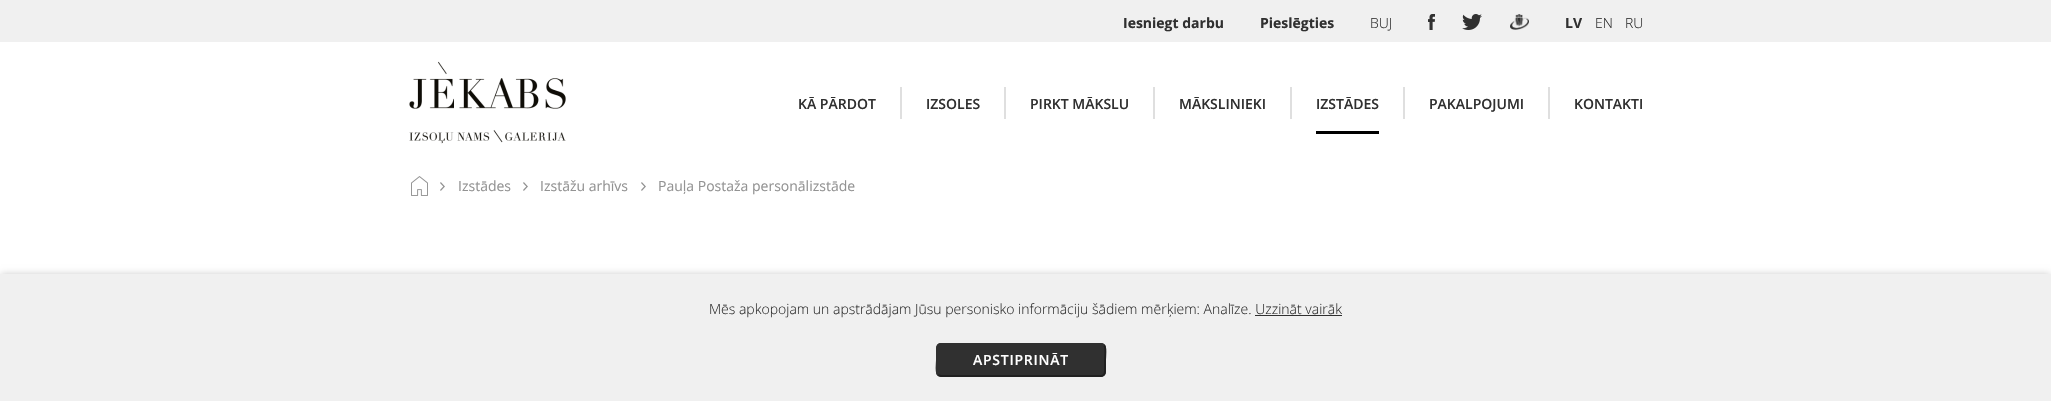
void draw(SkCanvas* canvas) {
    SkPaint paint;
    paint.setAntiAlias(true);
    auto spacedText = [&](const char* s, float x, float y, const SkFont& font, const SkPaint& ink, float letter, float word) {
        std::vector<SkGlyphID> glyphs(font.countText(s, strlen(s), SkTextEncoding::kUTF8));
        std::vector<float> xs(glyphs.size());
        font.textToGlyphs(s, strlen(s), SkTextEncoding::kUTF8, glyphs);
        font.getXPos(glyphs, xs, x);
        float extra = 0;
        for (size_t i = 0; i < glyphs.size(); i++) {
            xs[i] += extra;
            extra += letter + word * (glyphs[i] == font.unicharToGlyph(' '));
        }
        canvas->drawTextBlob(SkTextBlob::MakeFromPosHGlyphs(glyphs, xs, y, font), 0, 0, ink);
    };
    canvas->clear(0xFFFFFFFF);
    paint.setColor(0xFFF0F0F0);
    canvas->drawRect(SkRect::MakeXYWH(0, 0, 2051, 42), paint);
    SkFont font1(fontMgr->matchFamilyStyle("Open Sans", SkFontStyle::Bold()), 14);
    font1.setSubpixel(true);
    paint.setColor(0xFF303030);
    canvas->drawString("Iesniegt darbu", 1123, 28, font1, paint);
    canvas->drawString("Pieslēgties", 1260, 28, font1, paint);
    SkFont font2(fontMgr->matchFamilyStyle("Open Sans", SkFontStyle(300, SkFontStyle::kNormal_Width, SkFontStyle::kUpright_Slant)), 14);
    font2.setSubpixel(true);
    canvas->drawString("BUJ", 1370, 28, font2, paint);
    canvas->drawImageRect(SkImages::DeferredFromEncodedData(SkData::MakeFromFileName("img1.png")), SkRect::MakeXYWH(1428, 14, 7, 16), SkSamplingOptions());
    canvas->drawImageRect(SkImages::DeferredFromEncodedData(SkData::MakeFromFileName("img2.png")), SkRect::MakeXYWH(1462, 14, 20, 16), SkSamplingOptions());
    canvas->drawImageRect(SkImages::DeferredFromEncodedData(SkData::MakeFromFileName("img3.png")), SkRect::MakeXYWH(1510, 14, 19, 16), SkSamplingOptions());
    canvas->drawString("LV", 1565, 28, font1, paint);
    canvas->drawString("EN", 1595, 28, font2, paint);
    canvas->drawString("RU", 1625, 28, font2, paint);
    canvas->drawImageRect(SkImages::DeferredFromEncodedData(SkData::MakeFromFileName("img4.png")), SkRect::MakeXYWH(409, 61, 157, 83), SkSamplingOptions());
    paint.setColor(0xFFDFDFDF);
    canvas->drawRect(SkRect::MakeXYWH(900, 87, 2, 32), paint);
    SkFont font3(fontMgr->matchFamilyStyle("Open Sans", SkFontStyle(600, SkFontStyle::kNormal_Width, SkFontStyle::kUpright_Slant)), 14);
    font3.setSubpixel(true);
    paint.setColor(0xFF303030);
    canvas->drawString("KĀ PĀRDOT", 798, 109, font3, paint);
    paint.setColor(0xFFDFDFDF);
    canvas->drawRect(SkRect::MakeXYWH(1004, 87, 2, 32), paint);
    paint.setColor(0xFF303030);
    canvas->drawString("IZSOLES", 926, 109, font3, paint);
    paint.setColor(0xFFDFDFDF);
    canvas->drawRect(SkRect::MakeXYWH(1153, 87, 2, 32), paint);
    paint.setColor(0xFF303030);
    canvas->drawString("PIRKT MĀKSLU", 1030, 109, font3, paint);
    paint.setColor(0xFFDFDFDF);
    canvas->drawRect(SkRect::MakeXYWH(1290, 87, 2, 32), paint);
    paint.setColor(0xFF303030);
    canvas->drawString("MĀKSLINIEKI", 1179, 109, font3, paint);
    paint.setColor(0xFF000000);
    canvas->drawRect(SkRect::MakeXYWH(1316, 131, 63, 3), paint);
    paint.setColor(0xFF303030);
    canvas->drawString("IZSTĀDES", 1316, 109, font3, paint);
    paint.setColor(0xFFDFDFDF);
    canvas->drawRect(SkRect::MakeXYWH(1548, 87, 2, 32), paint);
    canvas->drawRect(SkRect::MakeXYWH(1403, 87, 2, 32), paint);
    paint.setColor(0xFF303030);
    canvas->drawString("PAKALPOJUMI", 1429, 109, font3, paint);
    canvas->drawString("KONTAKTI", 1574, 109, font3, paint);
    canvas->drawImageRect(SkImages::DeferredFromEncodedData(SkData::MakeFromFileName("img5.png")), SkRect::MakeXYWH(411, 176, 17, 20), SkSamplingOptions());
    canvas->drawImageRect(SkImages::DeferredFromEncodedData(SkData::MakeFromFileName("img6.png")), SkRect::MakeXYWH(440, 182, 5, 9), SkSamplingOptions());
    SkFont font4(fontMgr->matchFamilyStyle("Open Sans", SkFontStyle::Normal()), 14);
    font4.setSubpixel(true);
    paint.setColor(0xFF939393);
    canvas->drawString("Izstādes", 458, 191, font4, paint);
    canvas->drawImageRect(SkImages::DeferredFromEncodedData(SkData::MakeFromFileName("img6.png")), SkRect::MakeXYWH(523, 182, 5, 9), SkSamplingOptions());
    canvas->drawString("Izstāžu arhīvs", 540, 191, font4, paint);
    canvas->drawImageRect(SkImages::DeferredFromEncodedData(SkData::MakeFromFileName("img6.png")), SkRect::MakeXYWH(641, 182, 5, 9), SkSamplingOptions());
    canvas->drawString("Pauļa Postaža personālizstāde", 658, 191, font4, paint);
    paint.setColor(0x33000000);
    paint.setMaskFilter(SkMaskFilter::MakeBlur(kNormal_SkBlurStyle, 3.5f));
    canvas->drawRect(SkRect::MakeXYWH(1, 274, 2049, 125), paint);
    paint.setMaskFilter(nullptr);
    paint.setColor(0xFFF0F0F0);
    canvas->drawRect(SkRect::MakeXYWH(0, 274, 2051, 127), paint);
    paint.setColor(0xFF303030);
    canvas->drawString("Mēs apkopojam un apstrādājam Jūsu personisko informāciju šādiem mērķiem: Analīze. Uzzināt vairāk", 709, 314, font2, paint);
    canvas->drawRect(SkRect::MakeXYWH(1255, 315, 87, 1), paint);
    canvas->drawRoundRect(SkRect::MakeXYWH(936, 343, 170, 34), 5, 5, paint);
    paint.setStyle(SkPaint::kStroke_Style);
    paint.setStrokeWidth(2);
    paint.setColor(0xFF202020);
    canvas->drawPath(SkPathBuilder().moveTo(1104, 345).cubicTo(1106.5f, 347.5f, 1105, 357, 1105, 360).lineTo(1105, 368).cubicTo(1105, 371, 1105.5f, 376, 1101, 376).lineTo(941, 376).lineTo(938, 375).detach(), paint);
    paint.setColor(0xFF303030);
    canvas->drawPath(SkPathBuilder().moveTo(938, 375).cubicTo(935.5f, 372.5f, 937, 363, 937, 360).lineTo(937, 352).cubicTo(937, 349, 936.5f, 344, 941, 344).lineTo(1101, 344).lineTo(1104, 345).detach(), paint);
    paint.setStyle(SkPaint::kFill_Style);
    paint.setColor(0xFFFFFFFF);
    spacedText("APSTIPRINĀT", 973, 365, font3, paint, 0.75f, 0);
}
